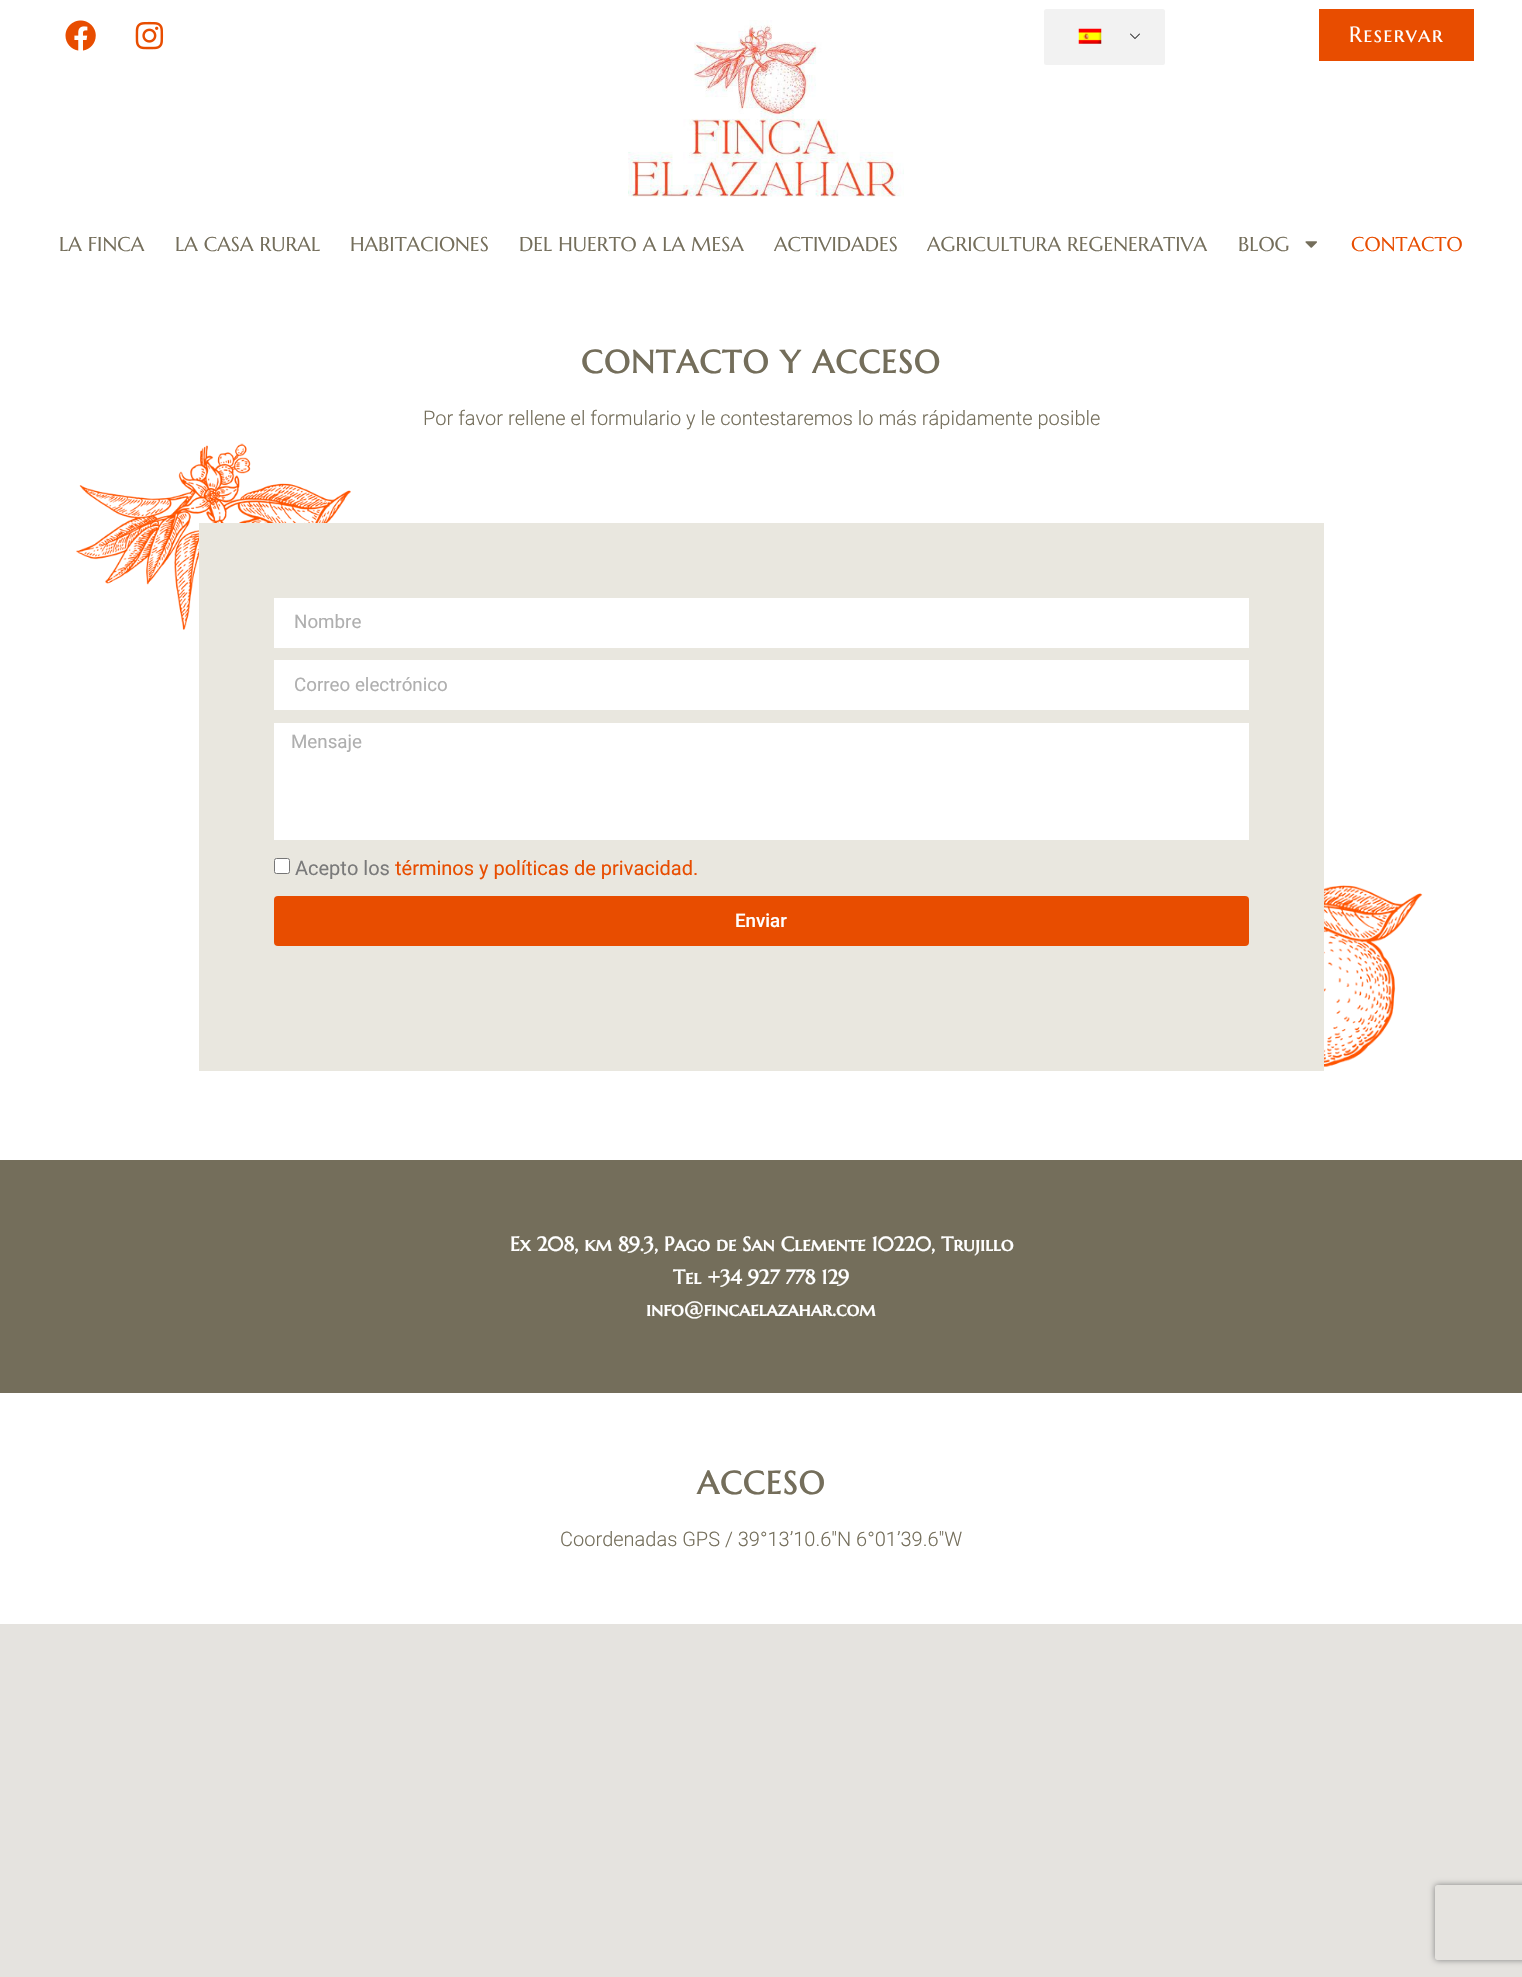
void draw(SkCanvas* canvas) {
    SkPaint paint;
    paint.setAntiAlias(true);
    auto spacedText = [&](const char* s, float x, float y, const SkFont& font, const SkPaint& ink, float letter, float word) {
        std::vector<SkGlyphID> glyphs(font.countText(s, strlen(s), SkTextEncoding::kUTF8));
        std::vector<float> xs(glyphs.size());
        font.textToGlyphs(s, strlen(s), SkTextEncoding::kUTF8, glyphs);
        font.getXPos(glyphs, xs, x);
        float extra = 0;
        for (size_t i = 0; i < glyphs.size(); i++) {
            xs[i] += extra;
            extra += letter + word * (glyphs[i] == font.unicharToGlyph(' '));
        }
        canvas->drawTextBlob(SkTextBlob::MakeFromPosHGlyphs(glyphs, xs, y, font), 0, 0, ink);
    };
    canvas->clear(0xFFFFFFFF);
    canvas->drawImageRect(SkImages::DeferredFromEncodedData(SkData::MakeFromFileName("img1.png")), SkRect::MakeXYWH(628, 20, 276, 177), SkSamplingOptions());
    canvas->drawImageRect(SkImages::DeferredFromEncodedData(SkData::MakeFromFileName("img2.png")), SkRect::MakeXYWH(65, 20, 31, 31), SkSamplingOptions());
    canvas->drawImageRect(SkImages::DeferredFromEncodedData(SkData::MakeFromFileName("img3.png")), SkRect::MakeXYWH(135, 21, 29, 29), SkSamplingOptions());
    paint.setColor(0xFFF2F2F2);
    canvas->drawRoundRect(SkRect::MakeXYWH(1044, 9, 121, 56), 2.5f, 2.5f, paint);
    canvas->drawImageRect(SkImages::DeferredFromEncodedData(SkData::MakeFromFileName("img4.png")), SkRect::MakeXYWH(1130, 33, 10, 6), SkSamplingOptions());
    canvas->drawImageRect(SkImages::DeferredFromEncodedData(SkData::MakeFromFileName("img5.png")), SkRect::MakeXYWH(1078, 28, 24, 16), SkSamplingOptions());
    paint.setColor(0xFFE84D00);
    canvas->drawRect(SkRect::MakeXYWH(1319, 9, 155, 52), paint);
    SkFont font1(fontMgr->matchFamilyStyle("Marcellus SC", SkFontStyle::Normal()), 22);
    font1.setSubpixel(true);
    paint.setColor(0xFFFFFFFF);
    spacedText("Reservar", 1349, 42, font1, paint, 1.25f, 0);
    SkFont font2(fontMgr->matchFamilyStyle("Marcellus SC", SkFontStyle::Normal()), 20);
    font2.setSubpixel(true);
    paint.setColor(0xFF746E5B);
    canvas->drawString("LA FINCA", 59, 251, font2, paint);
    canvas->drawString("LA CASA RURAL", 175, 251, font2, paint);
    canvas->drawString("HABITACIONES", 350, 251, font2, paint);
    canvas->drawString("DEL HUERTO A LA MESA", 519, 251, font2, paint);
    canvas->drawString("ACTIVIDADES", 774, 251, font2, paint);
    canvas->drawString("AGRICULTURA REGENERATIVA", 927, 251, font2, paint);
    canvas->drawString("BLOG", 1238, 251, font2, paint);
    canvas->drawImageRect(SkImages::DeferredFromEncodedData(SkData::MakeFromFileName("img6.png")), SkRect::MakeXYWH(1305, 241, 12, 7), SkSamplingOptions());
    paint.setColor(0xFFE84D00);
    canvas->drawString("CONTACTO", 1351, 251, font2, paint);
    SkFont font3(fontMgr->matchFamilyStyle("Marcellus SC", SkFontStyle::Bold()), 32);
    font3.setSubpixel(true);
    paint.setColor(0xFF746E5B);
    spacedText("CONTACTO Y ACCESO", 581, 373, font3, paint, 1.25f, 0);
    SkFont font4(fontMgr->matchFamilyStyle("Roboto", SkFontStyle(300, SkFontStyle::kNormal_Width, SkFontStyle::kUpright_Slant)), 20);
    font4.setSubpixel(true);
    canvas->drawString("Por favor rellene el formulario y le contestaremos lo más rápidamente posible", 423, 425, font4, paint);
    canvas->drawImageRect(SkImages::DeferredFromEncodedData(SkData::MakeFromFileName("img7.png")), SkRect::MakeXYWH(76, 443, 275, 187), SkSamplingOptions());
    paint.setColor(0xFFE9E7DF);
    canvas->drawRect(SkRect::MakeXYWH(199, 523, 1125, 548), paint);
    paint.setColor(0xFFFFFFFF);
    canvas->drawRect(SkRect::MakeXYWH(274, 598, 975, 50), paint);
    SkFont font5(fontMgr->matchFamilyStyle("Roboto", SkFontStyle::Normal()), 18.75f);
    font5.setSubpixel(true);
    paint.setColor(0xFFAFAFAF);
    canvas->drawString("Nombre", 294, 628, font5, paint);
    paint.setColor(0xFFFFFFFF);
    canvas->drawRect(SkRect::MakeXYWH(274, 660, 975, 50), paint);
    paint.setColor(0xFFAFAFAF);
    canvas->drawString("Correo electrónico", 294, 691, font5, paint);
    paint.setColor(0xFFFFFFFF);
    canvas->drawRect(SkRect::MakeXYWH(274, 723, 975, 117), paint);
    paint.setColor(0xFFAFAFAF);
    canvas->drawString("Mensaje", 291, 748, font5, paint);
    paint.setColor(0xFFFFFFFF);
    canvas->drawRoundRect(SkRect::MakeXYWH(274.5f, 858.5f, 15, 15), 2, 2, paint);
    paint.setStyle(SkPaint::kStroke_Style);
    paint.setStrokeWidth(1);
    paint.setColor(0xFF767676);
    canvas->drawRoundRect(SkRect::MakeXYWH(274.5f, 858.5f, 15, 15), 2, 2, paint);
    SkFont font6(fontMgr->matchFamilyStyle("Roboto", SkFontStyle::Normal()), 20);
    font6.setSubpixel(true);
    paint.setStyle(SkPaint::kFill_Style);
    paint.setColor(0xFF7A7A7A);
    canvas->drawString("Acepto los", 295, 875, font6, paint);
    paint.setColor(0xFFE84D00);
    canvas->drawString("términos y políticas de privacidad.", 395, 875, font6, paint);
    canvas->drawRoundRect(SkRect::MakeXYWH(274, 896, 975, 50), 4, 4, paint);
    SkFont font7(fontMgr->matchFamilyStyle("Roboto", SkFontStyle(500, SkFontStyle::kNormal_Width, SkFontStyle::kUpright_Slant)), 18.75f);
    font7.setSubpixel(true);
    paint.setColor(0xFFFFFFFF);
    canvas->drawString("Enviar", 735, 927, font7, paint);
    paint.setColor(0xFFE5E3DF);
    canvas->drawRect(SkRect::MakeXYWH(0, 1624, 1522, 353), paint);
    canvas->save();
    canvas->clipPath(SkPathBuilder(SkPathFillType::kEvenOdd).moveTo(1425, 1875).lineTo(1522, 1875).lineTo(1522, 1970).lineTo(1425, 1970).close().moveTo(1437.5f, 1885).lineTo(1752.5f, 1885).cubicTo(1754, 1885, 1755, 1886, 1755, 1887.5f).lineTo(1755, 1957.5f).cubicTo(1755, 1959, 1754, 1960, 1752.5f, 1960).lineTo(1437.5f, 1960).cubicTo(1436, 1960, 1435, 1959, 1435, 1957.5f).lineTo(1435, 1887.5f).cubicTo(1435, 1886, 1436, 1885, 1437.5f, 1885).close().detach(), true);
    paint.setColor(0xFF808080);
    paint.setMaskFilter(SkMaskFilter::MakeBlur(kNormal_SkBlurStyle, 3));
    canvas->drawRoundRect(SkRect::MakeXYWH(1435, 1885, 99, 75), 2.5f, 2.5f, paint);
    paint.setMaskFilter(nullptr);
    canvas->restore();
    canvas->drawImageRect(SkImages::DeferredFromEncodedData(SkData::MakeFromFileName("img8.png")), SkRect::MakeXYWH(1324, 885, 99, 182), SkSamplingOptions());
    paint.setColor(0xFF746E5B);
    canvas->drawRect(SkRect::MakeXYWH(0, 1160, 1522, 233), paint);
    SkFont font8(fontMgr->matchFamilyStyle("Marcellus SC", SkFontStyle::Bold()), 20);
    font8.setSubpixel(true);
    paint.setColor(0xFFFFFFFF);
    canvas->drawString("Ex 208, km 89.3, Pago de San Clemente 10220, Trujillo", 510, 1251, font8, paint);
    canvas->drawString("Tel +34 927 778 129", 673, 1284, font8, paint);
    canvas->drawString("info@fincaelazahar.com", 646, 1316, font8, paint);
    paint.setColor(0xFF746E5B);
    spacedText("ACCESO", 697, 1494, font3, paint, 1.25f, 0);
    canvas->drawString("Coordenadas GPS / 39°13’10.6″N 6°01’39.6″W", 560, 1546, font4, paint);
}
